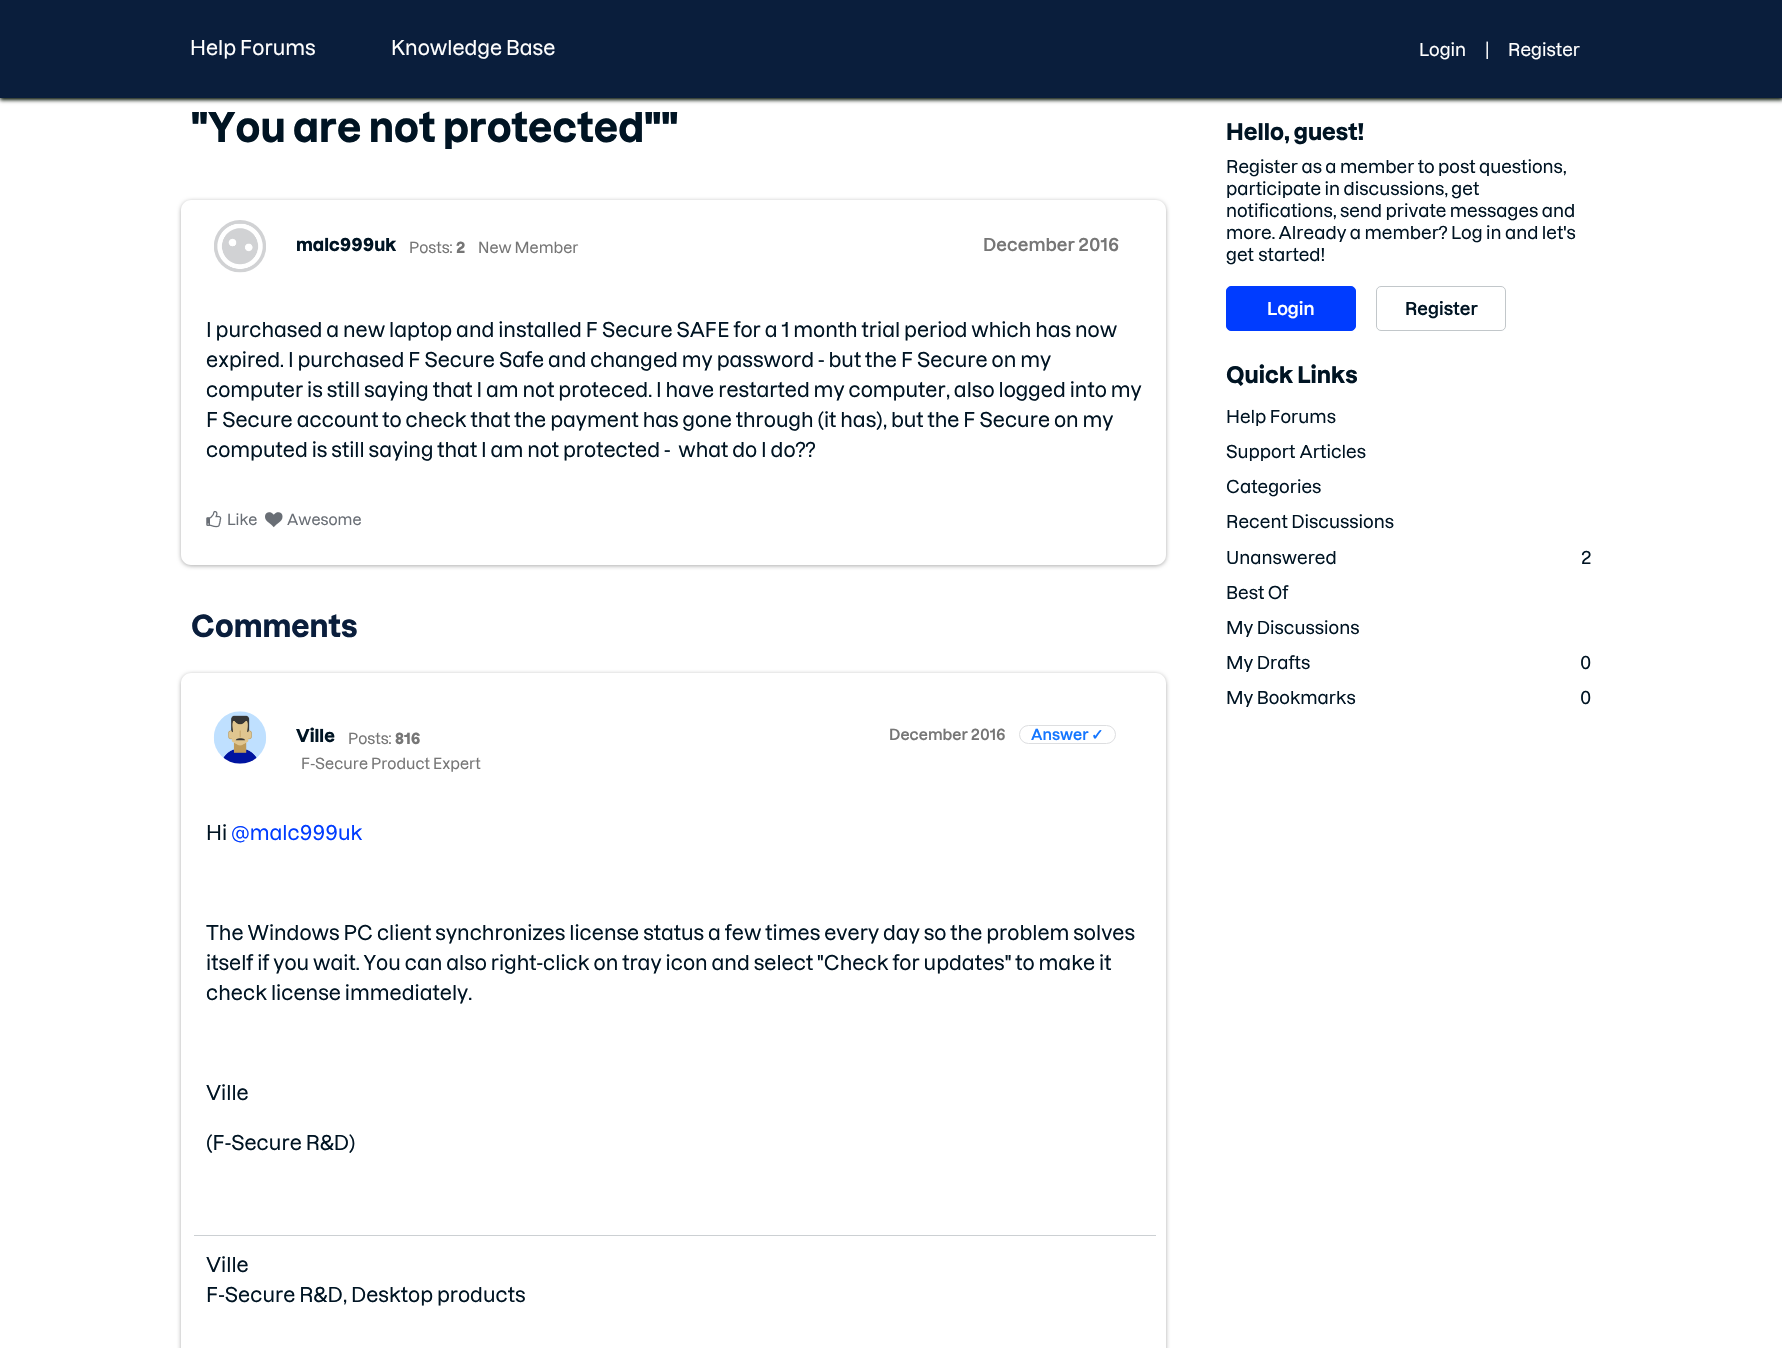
void draw(SkCanvas* canvas) {
    SkPaint paint;
    paint.setAntiAlias(true);
    auto spacedText = [&](const char* s, float x, float y, const SkFont& font, const SkPaint& ink, float letter, float word) {
        std::vector<SkGlyphID> glyphs(font.countText(s, strlen(s), SkTextEncoding::kUTF8));
        std::vector<float> xs(glyphs.size());
        font.textToGlyphs(s, strlen(s), SkTextEncoding::kUTF8, glyphs);
        font.getXPos(glyphs, xs, x);
        float extra = 0;
        for (size_t i = 0; i < glyphs.size(); i++) {
            xs[i] += extra;
            extra += letter + word * (glyphs[i] == font.unicharToGlyph(' '));
        }
        canvas->drawTextBlob(SkTextBlob::MakeFromPosHGlyphs(glyphs, xs, y, font), 0, 0, ink);
    };
    canvas->clear(0xFFFFFFFF);
    paint.setColor(0xFF000D00);
    paint.setMaskFilter(SkMaskFilter::MakeBlur(kNormal_SkBlurStyle, 2));
    canvas->drawRect(SkRect::MakeXYWH(0, 3, 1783, 97), paint);
    paint.setMaskFilter(nullptr);
    paint.setColor(0xFF0A1E3C);
    canvas->drawRect(SkRect::MakeXYWH(0, 0, 1782, 98), paint);
    SkFont font1(fontMgr->matchFamilyStyle("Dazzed", SkFontStyle(500, SkFontStyle::kNormal_Width, SkFontStyle::kUpright_Slant)), 20);
    font1.setSubpixel(true);
    paint.setColor(0xFFFFFFFF);
    canvas->drawString("Help Forums", 190, 55, font1, paint);
    canvas->drawString("Knowledge Base", 391, 55, font1, paint);
    SkFont font2(fontMgr->matchFamilyStyle("Dazzed", SkFontStyle(500, SkFontStyle::kNormal_Width, SkFontStyle::kUpright_Slant)), 17.5f);
    font2.setSubpixel(true);
    canvas->drawString("Login", 1419, 56, font2, paint);
    canvas->drawString("|", 1485, 56, font2, paint);
    canvas->drawString("Register", 1508, 56, font2, paint);
    SkFont font3(fontMgr->matchFamilyStyle("Dazzed", SkFontStyle::Bold()), 40);
    font3.setSubpixel(true);
    paint.setColor(0xFF001423);
    canvas->drawString("\"You are not protected\"\"", 191, 142, font3, paint);
    canvas->save();
    canvas->clipPath(SkPathBuilder(SkPathFillType::kEvenOdd).moveTo(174, 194).lineTo(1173, 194).lineTo(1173, 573).lineTo(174, 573).close().moveTo(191, 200).lineTo(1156, 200).cubicTo(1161.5f, 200, 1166, 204.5f, 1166, 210).lineTo(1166, 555).cubicTo(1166, 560.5f, 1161.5f, 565, 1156, 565).lineTo(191, 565).cubicTo(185.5f, 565, 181, 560.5f, 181, 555).lineTo(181, 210).cubicTo(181, 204.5f, 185.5f, 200, 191, 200).close().detach(), true);
    paint.setColor(0xFFACACAC);
    paint.setMaskFilter(SkMaskFilter::MakeBlur(kNormal_SkBlurStyle, 2));
    canvas->drawRoundRect(SkRect::MakeXYWH(181, 201, 985, 365), 10, 10, paint);
    paint.setMaskFilter(nullptr);
    canvas->restore();
    canvas->drawImageRect(SkImages::DeferredFromEncodedData(SkData::MakeFromFileName("img1.png")), SkRect::MakeXYWH(214, 220, 52, 53), SkSamplingOptions());
    SkFont font4(fontMgr->matchFamilyStyle("Dazzed", SkFontStyle::Bold()), 17.5f);
    font4.setSubpixel(true);
    paint.setColor(0xFF001423);
    canvas->drawString("malc999uk", 296, 251, font4, paint);
    SkFont font5(fontMgr->matchFamilyStyle("Dazzed", SkFontStyle(500, SkFontStyle::kNormal_Width, SkFontStyle::kUpright_Slant)), 15);
    font5.setSubpixel(true);
    paint.setColor(0xFF767676);
    canvas->drawString("Posts:", 409, 253, font5, paint);
    SkFont font6(fontMgr->matchFamilyStyle("Dazzed", SkFontStyle::Bold()), 15);
    font6.setSubpixel(true);
    canvas->drawString("2", 456, 253, font6, paint);
    canvas->drawString("New Member", 478, 253, font5, paint);
    SkFont font7(fontMgr->matchFamilyStyle("Dazzed", SkFontStyle(600, SkFontStyle::kNormal_Width, SkFontStyle::kUpright_Slant)), 17.5f);
    font7.setSubpixel(true);
    canvas->drawString("December 2016", 983, 251, font7, paint);
    paint.setColor(0xFF001423);
    canvas->drawString("I purchased a new laptop and installed F Secure SAFE for a 1 month trial period which has now", 206, 337, font1, paint);
    canvas->drawString("expired. I purchased F Secure Safe and changed my password - but the F Secure on my", 206, 367, font1, paint);
    canvas->drawString("computer is still saying that I am not proteced. I have restarted my computer, also logged into my", 206, 397, font1, paint);
    canvas->drawString("F Secure account to check that the payment has gone through (it has), but the F Secure on my", 206, 427, font1, paint);
    canvas->drawString("computed is still saying that I am not protected -  what do I do?\077", 206, 457, font1, paint);
    canvas->drawImageRect(SkImages::DeferredFromEncodedData(SkData::MakeFromFileName("img2.png")), SkRect::MakeXYWH(206, 510, 16, 18), SkSamplingOptions());
    paint.setColor(0xFF696E75);
    canvas->drawString("Like", 227, 525, font5, paint);
    canvas->drawImageRect(SkImages::DeferredFromEncodedData(SkData::MakeFromFileName("img3.png")), SkRect::MakeXYWH(265, 512, 18, 16), SkSamplingOptions());
    canvas->drawString("Awesome", 287, 525, font5, paint);
    SkFont font8(fontMgr->matchFamilyStyle("Dazzed", SkFontStyle::Bold()), 30);
    font8.setSubpixel(true);
    paint.setColor(0xFF0A1E3C);
    canvas->drawString("Comments", 191, 637, font8, paint);
    canvas->save();
    canvas->clipPath(SkPathBuilder(SkPathFillType::kEvenOdd).moveTo(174, 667).lineTo(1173, 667).lineTo(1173, 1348).lineTo(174, 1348).close().moveTo(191, 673).lineTo(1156, 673).cubicTo(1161.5f, 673, 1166, 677.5f, 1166, 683).lineTo(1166, 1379).cubicTo(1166, 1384.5f, 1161.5f, 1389, 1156, 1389).lineTo(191, 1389).cubicTo(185.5f, 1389, 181, 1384.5f, 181, 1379).lineTo(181, 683).cubicTo(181, 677.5f, 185.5f, 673, 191, 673).close().detach(), true);
    paint.setColor(0xFFACACAC);
    paint.setMaskFilter(SkMaskFilter::MakeBlur(kNormal_SkBlurStyle, 2));
    canvas->drawRoundRect(SkRect::MakeXYWH(181, 674, 985, 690), 10, 10, paint);
    paint.setMaskFilter(nullptr);
    canvas->restore();
    canvas->drawImageRect(SkImages::DeferredFromEncodedData(SkData::MakeFromFileName("img4.png")), SkRect::MakeXYWH(213, 711, 54, 53), SkSamplingOptions());
    paint.setColor(0xFF001423);
    canvas->drawString("Ville", 296, 742, font4, paint);
    paint.setColor(0xFF767676);
    canvas->drawString("Posts:", 348, 744, font5, paint);
    canvas->drawString("816", 395, 744, font6, paint);
    canvas->drawString("F-Secure Product Expert", 301, 769, font5, paint);
    SkFont font9(fontMgr->matchFamilyStyle("Dazzed", SkFontStyle(600, SkFontStyle::kNormal_Width, SkFontStyle::kUpright_Slant)), 15);
    font9.setSubpixel(true);
    canvas->drawString("December 2016", 889, 740, font9, paint);
    paint.setStyle(SkPaint::kStroke_Style);
    paint.setStrokeWidth(1);
    paint.setColor(0xFFDDDEE0);
    canvas->drawRoundRect(SkRect::MakeXYWH(1019.5f, 725.5f, 96, 18), 9, 9, paint);
    paint.setStyle(SkPaint::kFill_Style);
    paint.setColor(0xFF1476FF);
    canvas->drawString("Answer", 1031, 740, font9, paint);
    SkFont font10(fontMgr->matchFamilyStyle("DejaVu Sans", SkFontStyle::Bold()), 15);
    font10.setSubpixel(true);
    canvas->drawString("✓", 1091, 740, font10, paint);
    paint.setColor(0xFF001423);
    canvas->drawString("Hi", 206, 840, font1, paint);
    paint.setColor(0xFF003CFF);
    canvas->drawString("@malc999uk", 231, 840, font1, paint);
    paint.setColor(0xFF001423);
    canvas->drawString("The Windows PC client synchronizes license status a few times every day so the problem solves", 206, 940, font1, paint);
    canvas->drawString("itself if you wait. You can also right-click on tray icon and select \"Check for updates\" to make it", 206, 970, font1, paint);
    canvas->drawString("check license immediately.", 206, 1000, font1, paint);
    canvas->drawString("Ville", 206, 1100, font1, paint);
    canvas->drawString("(F-Secure R&D)", 206, 1150, font1, paint);
    paint.setColor(0xFFCCD0D3);
    canvas->drawRect(SkRect::MakeXYWH(194, 1235, 962, 1), paint);
    paint.setColor(0xFF001423);
    canvas->drawString("Ville", 206, 1272, font1, paint);
    canvas->drawString("F-Secure R&D, Desktop products", 206, 1302, font1, paint);
    SkFont font11(fontMgr->matchFamilyStyle("Dazzed", SkFontStyle::Bold()), 22.5f);
    font11.setSubpixel(true);
    canvas->drawString("Hello, guest!", 1226, 140, font11, paint);
    canvas->drawString("Register as a member to post questions,", 1226, 173, font2, paint);
    canvas->drawString("participate in discussions, get", 1226, 195, font2, paint);
    canvas->drawString("notifications, send private messages and", 1226, 217, font2, paint);
    canvas->drawString("more. Already a member? Log in and let's", 1226, 239, font2, paint);
    spacedText("get started!", 1226, 261, font2, paint, 0, 1);
    paint.setColor(0xFF003CFF);
    canvas->drawRoundRect(SkRect::MakeXYWH(1226.5f, 286.5f, 129, 44), 4.5f, 4.5f, paint);
    paint.setStyle(SkPaint::kStroke_Style);
    canvas->drawRoundRect(SkRect::MakeXYWH(1226.5f, 286.5f, 129, 44), 4.5f, 4.5f, paint);
    paint.setStyle(SkPaint::kFill_Style);
    paint.setColor(0xFFFFFFFF);
    canvas->drawString("Login", 1267, 315, font7, paint);
    paint.setStyle(SkPaint::kStroke_Style);
    paint.setColor(0xFFC2C7CA);
    canvas->drawRoundRect(SkRect::MakeXYWH(1376.5f, 286.5f, 129, 44), 4.5f, 4.5f, paint);
    paint.setStyle(SkPaint::kFill_Style);
    paint.setColor(0xFF001423);
    canvas->drawString("Register", 1405, 315, font7, paint);
    canvas->drawString("Quick Links", 1226, 383, font11, paint);
    canvas->drawString("Help Forums", 1226, 423, font2, paint);
    spacedText("Support Articles", 1226, 458, font2, paint, 0, 1);
    canvas->drawString("Categories", 1226, 493, font2, paint);
    canvas->drawString("Recent Discussions", 1226, 528, font2, paint);
    canvas->drawString("Unanswered", 1226, 564, font2, paint);
    canvas->drawString("2", 1581, 564, font2, paint);
    canvas->drawString("Best Of", 1226, 599, font2, paint);
    canvas->drawString("My Discussions", 1226, 634, font2, paint);
    canvas->drawString("My Drafts", 1226, 669, font2, paint);
    canvas->drawString("0", 1580, 669, font2, paint);
    canvas->drawString("My Bookmarks", 1226, 704, font2, paint);
    canvas->drawString("0", 1580, 704, font2, paint);
}
